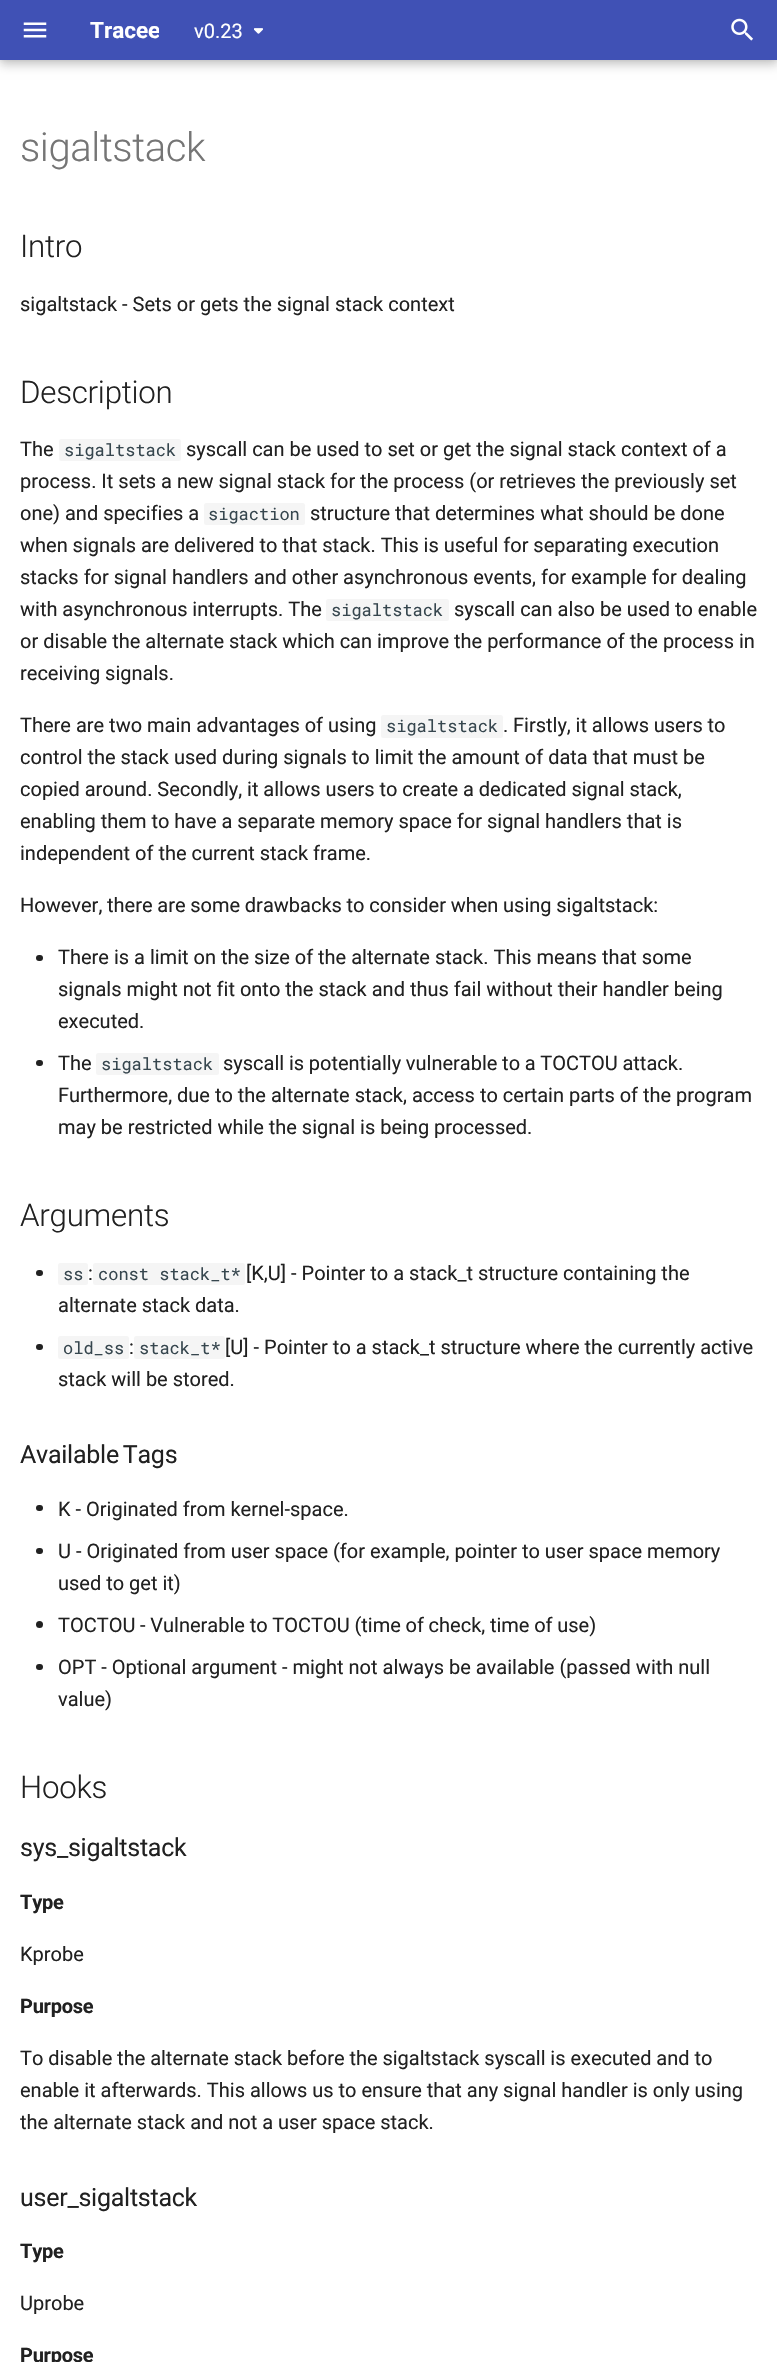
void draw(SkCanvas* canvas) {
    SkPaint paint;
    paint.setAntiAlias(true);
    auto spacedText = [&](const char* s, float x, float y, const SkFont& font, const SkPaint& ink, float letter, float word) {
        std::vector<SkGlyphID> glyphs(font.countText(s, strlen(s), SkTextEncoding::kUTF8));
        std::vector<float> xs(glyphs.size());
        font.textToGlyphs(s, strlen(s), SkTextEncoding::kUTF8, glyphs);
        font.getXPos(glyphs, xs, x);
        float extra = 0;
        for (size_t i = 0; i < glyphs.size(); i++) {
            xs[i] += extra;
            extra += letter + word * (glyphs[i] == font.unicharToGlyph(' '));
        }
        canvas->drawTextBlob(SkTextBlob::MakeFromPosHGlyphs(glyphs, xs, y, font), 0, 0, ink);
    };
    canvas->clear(0xFFFFFFFF);
    paint.setColor(0x33000000);
    paint.setMaskFilter(SkMaskFilter::MakeBlur(kNormal_SkBlurStyle, 5));
    canvas->drawRect(SkRect::MakeXYWH(0, 5, 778, 60), paint);
    paint.setMaskFilter(nullptr);
    paint.setColor(0x1A000000);
    paint.setMaskFilter(SkMaskFilter::MakeBlur(kNormal_SkBlurStyle, 2.5f));
    canvas->drawRect(SkRect::MakeXYWH(0, 0, 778, 60), paint);
    paint.setMaskFilter(nullptr);
    paint.setColor(0xFF4051B5);
    canvas->drawRect(SkRect::MakeXYWH(0, 0, 777, 60), paint);
    canvas->drawImageRect(SkImages::DeferredFromEncodedData(SkData::MakeFromFileName("img1.png")), SkRect::MakeXYWH(23, 22, 24, 16), SkSamplingOptions());
    canvas->save();
    canvas->clipRect(SkRect::MakeXYWH(90, 0, 69, 60));
    SkFont font1(fontMgr->matchFamilyStyle("Roboto", SkFontStyle::Bold()), 22.5f);
    font1.setSubpixel(true);
    paint.setColor(0xFFFFFFFF);
    canvas->drawString("Tracee", 90, 38, font1, paint);
    canvas->restore();
    SkFont font2(fontMgr->matchFamilyStyle("Roboto", SkFontStyle::Normal()), 20);
    font2.setSubpixel(true);
    canvas->drawString("v0.23", 194, 38, font2, paint);
    canvas->drawImageRect(SkImages::DeferredFromEncodedData(SkData::MakeFromFileName("img2.png")), SkRect::MakeXYWH(254, 28, 9, 6), SkSamplingOptions());
    canvas->drawImageRect(SkImages::DeferredFromEncodedData(SkData::MakeFromFileName("img3.png")), SkRect::MakeXYWH(731, 18, 22, 23), SkSamplingOptions());
    SkFont font3(fontMgr->matchFamilyStyle("Roboto", SkFontStyle(300, SkFontStyle::kNormal_Width, SkFontStyle::kUpright_Slant)), 40);
    font3.setSubpixel(true);
    paint.setColor(0xFF757575);
    spacedText("sigaltstack", 20, 161, font3, paint, -0.4f, 0);
    SkFont font4(fontMgr->matchFamilyStyle("Roboto", SkFontStyle(300, SkFontStyle::kNormal_Width, SkFontStyle::kUpright_Slant)), 31.25f);
    font4.setSubpixel(true);
    paint.setColor(0xFF212121);
    spacedText("Intro", 20, 257, font4, paint, -0.25f, 0);
    canvas->drawString("sigaltstack - Sets or gets the signal stack context", 20, 311, font2, paint);
    spacedText("Description", 20, 403, font4, paint, -0.25f, 0);
    canvas->drawString("The", 20, 456, font2, paint);
    paint.setColor(0xFFF5F5F5);
    canvas->drawRoundRect(SkRect::MakeXYWH(59, 439, 122, 22), 2.5f, 2.5f, paint);
    SkFont font5(fontMgr->matchFamilyStyle("Roboto Mono", SkFontStyle::Normal()), 17);
    font5.setSubpixel(true);
    paint.setColor(0xFF36464E);
    canvas->drawString("sigaltstack", 64, 456, font5, paint);
    paint.setColor(0xFF212121);
    canvas->drawString("syscall can be used to set or get the signal stack context of a", 186, 456, font2, paint);
    canvas->drawString("process. It sets a new signal stack for the process (or retrieves the previously set", 20, 488, font2, paint);
    canvas->drawString("one) and specifies a", 20, 520, font2, paint);
    paint.setColor(0xFFF5F5F5);
    canvas->drawRoundRect(SkRect::MakeXYWH(204, 503, 101, 22), 2.5f, 2.5f, paint);
    paint.setColor(0xFF36464E);
    canvas->drawString("sigaction", 208, 520, font5, paint);
    paint.setColor(0xFF212121);
    canvas->drawString("structure that determines what should be done", 310, 520, font2, paint);
    spacedText("when signals are delivered to that stack. This is useful for separating execution", 20, 552, font2, paint, 0, -0.1f);
    canvas->drawString("stacks for signal handlers and other asynchronous events, for example for dealing", 20, 584, font2, paint);
    spacedText("with asynchronous interrupts. The", 20, 616, font2, paint, 0, -0.1f);
    paint.setColor(0xFFF5F5F5);
    canvas->drawRoundRect(SkRect::MakeXYWH(326, 599, 123, 22), 2.5f, 2.5f, paint);
    paint.setColor(0xFF36464E);
    canvas->drawString("sigaltstack", 331, 616, font5, paint);
    paint.setColor(0xFF212121);
    canvas->drawString("syscall can also be used to enable", 454, 616, font2, paint);
    canvas->drawString("or disable the alternate stack which can improve the performance of the process in", 20, 648, font2, paint);
    canvas->drawString("receiving signals.", 20, 680, font2, paint);
    canvas->drawString("There are two main advantages of using", 20, 732, font2, paint);
    paint.setColor(0xFFF5F5F5);
    canvas->drawRoundRect(SkRect::MakeXYWH(381, 715, 122, 23), 2.5f, 2.5f, paint);
    paint.setColor(0xFF36464E);
    canvas->drawString("sigaltstack", 386, 732, font5, paint);
    paint.setColor(0xFF212121);
    spacedText(". Firstly, it allows users to", 503, 732, font2, paint, 0, -0.25f);
    canvas->drawString("control the stack used during signals to limit the amount of data that must be", 20, 764, font2, paint);
    spacedText("copied around. Secondly, it allows users to create a dedicated signal stack,", 20, 796, font2, paint, 0, -0.1f);
    canvas->drawString("enabling them to have a separate memory space for signal handlers that is", 20, 828, font2, paint);
    canvas->drawString("independent of the current stack frame.", 20, 860, font2, paint);
    spacedText("However, there are some drawbacks to consider when using sigaltstack:", 20, 912, font2, paint, 0, -0.25f);
    canvas->drawRoundRect(SkRect::MakeXYWH(36, 955, 7, 6), 3, 3, paint);
    canvas->drawString("There is a limit on the size of the alternate stack. This means that some", 58, 964, font2, paint);
    canvas->drawString("signals might not fit onto the stack and thus fail without their handler being", 58, 996, font2, paint);
    canvas->drawString("executed.", 58, 1028, font2, paint);
    canvas->drawRoundRect(SkRect::MakeXYWH(36, 1060, 7, 6), 3, 3, paint);
    canvas->drawString("The", 58, 1070, font2, paint);
    paint.setColor(0xFFF5F5F5);
    canvas->drawRoundRect(SkRect::MakeXYWH(96, 1053, 123, 22), 2.5f, 2.5f, paint);
    paint.setColor(0xFF36464E);
    canvas->drawString("sigaltstack", 101, 1070, font5, paint);
    paint.setColor(0xFF212121);
    spacedText("syscall is potentially vulnerable to a TOCTOU attack.", 223, 1070, font2, paint, 0, -0.25f);
    canvas->drawString("Furthermore, due to the alternate stack, access to certain parts of the program", 58, 1102, font2, paint);
    canvas->drawString("may be restricted while the signal is being processed.", 58, 1134, font2, paint);
    spacedText("Arguments", 20, 1226, font4, paint, -0.25f, 0);
    canvas->drawRoundRect(SkRect::MakeXYWH(36, 1270, 7, 6), 3, 3, paint);
    paint.setColor(0xFFF5F5F5);
    canvas->drawRoundRect(SkRect::MakeXYWH(58, 1263, 30, 22), 2.5f, 2.5f, paint);
    paint.setColor(0xFF36464E);
    canvas->drawString("ss", 63, 1280, font5, paint);
    paint.setColor(0xFF212121);
    canvas->drawString(":", 88, 1280, font2, paint);
    paint.setColor(0xFFF5F5F5);
    canvas->drawRoundRect(SkRect::MakeXYWH(93, 1263, 152, 22), 2.5f, 2.5f, paint);
    paint.setColor(0xFF36464E);
    canvas->drawString("const stack_t*", 98, 1280, font5, paint);
    paint.setColor(0xFF212121);
    canvas->drawString("[K,U] - Pointer to a stack_t structure containing the", 246, 1280, font2, paint);
    canvas->drawString("alternate stack data.", 58, 1312, font2, paint);
    canvas->drawRoundRect(SkRect::MakeXYWH(36, 1344, 7, 6), 3, 3, paint);
    paint.setColor(0xFFF5F5F5);
    canvas->drawRoundRect(SkRect::MakeXYWH(58, 1336, 71, 23), 2.5f, 2.5f, paint);
    paint.setColor(0xFF36464E);
    canvas->drawString("old_ss", 63, 1354, font5, paint);
    paint.setColor(0xFF212121);
    canvas->drawString(":", 129, 1354, font2, paint);
    paint.setColor(0xFFF5F5F5);
    canvas->drawRoundRect(SkRect::MakeXYWH(134, 1336, 91, 23), 2.5f, 2.5f, paint);
    paint.setColor(0xFF36464E);
    canvas->drawString("stack_t*", 139, 1354, font5, paint);
    paint.setColor(0xFF212121);
    canvas->drawString("[U] - Pointer to a stack_t structure where the currently active", 225, 1354, font2, paint);
    canvas->drawString("stack will be stored.", 58, 1386, font2, paint);
    SkFont font6(fontMgr->matchFamilyStyle("Roboto", SkFontStyle::Normal()), 25);
    font6.setSubpixel(true);
    spacedText("Available Tags", 20, 1463, font6, paint, -0.25f, -2);
    canvas->drawRoundRect(SkRect::MakeXYWH(36, 1505, 7, 6), 3, 3, paint);
    canvas->drawString("K - Originated from kernel-space.", 58, 1516, font2, paint);
    canvas->drawRoundRect(SkRect::MakeXYWH(36, 1548, 7, 6), 3, 3, paint);
    canvas->drawString("U - Originated from user space (for example, pointer to user space memory", 58, 1558, font2, paint);
    canvas->drawString("used to get it)", 58, 1590, font2, paint);
    canvas->drawCircle(39.5f, 1624.5f, 3.5f, paint);
    spacedText("TOCTOU - Vulnerable to TOCTOU (time of check, time of use)", 58, 1632, font2, paint, 0, -0.25f);
    canvas->drawRoundRect(SkRect::MakeXYWH(36, 1664, 7, 6), 3, 3, paint);
    canvas->drawString("OPT - Optional argument - might not always be available (passed with null", 58, 1674, font2, paint);
    canvas->drawString("value)", 58, 1706, font2, paint);
    spacedText("Hooks", 20, 1798, font4, paint, -0.25f, 0);
    spacedText("sys_sigaltstack", 20, 1856, font6, paint, -0.25f, 0);
    SkFont font7(fontMgr->matchFamilyStyle("Roboto", SkFontStyle::Bold()), 20);
    font7.setSubpixel(true);
    spacedText("Type", 20, 1909, font7, paint, -0.25f, 0);
    canvas->drawString("Kprobe", 20, 1961, font2, paint);
    spacedText("Purpose", 20, 2013, font7, paint, -0.25f, 0);
    spacedText("To disable the alternate stack before the sigaltstack syscall is executed and to", 20, 2065, font2, paint, 0, -0.1f);
    canvas->drawString("enable it afterwards. This allows us to ensure that any signal handler is only using", 20, 2097, font2, paint);
    canvas->drawString("the alternate stack and not a user space stack.", 20, 2129, font2, paint);
    spacedText("user_sigaltstack", 20, 2206, font6, paint, -0.25f, 0);
    spacedText("Type", 20, 2258, font7, paint, -0.25f, 0);
    canvas->drawString("Uprobe", 20, 2310, font2, paint);
    spacedText("Purpose", 20, 2362, font7, paint, -0.25f, 0);
}
